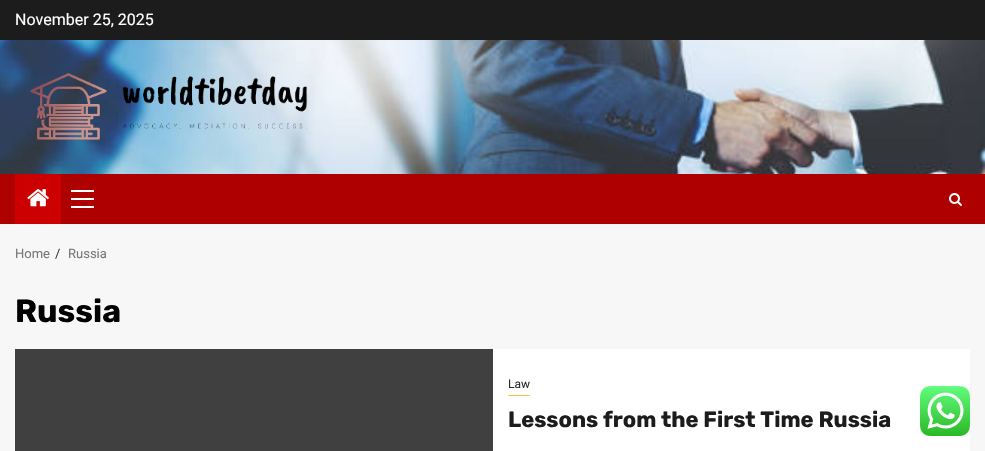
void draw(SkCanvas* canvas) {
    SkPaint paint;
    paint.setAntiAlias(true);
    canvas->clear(0xFFF7F7F7);
    paint.setColor(0xFF1C1C1C);
    canvas->drawRect(SkRect::MakeXYWH(0, 0, 985, 40), paint);
    SkFont font1(fontMgr->matchFamilyStyle("Roboto", SkFontStyle::Normal()), 16);
    font1.setSubpixel(true);
    paint.setColor(0xFFFFFFFF);
    canvas->drawString("November 25, 2025", 15, 25, font1, paint);
    canvas->drawImageRect(SkImages::DeferredFromEncodedData(SkData::MakeFromFileName("img1.png")), SkRect::MakeXYWH(0, 40, 985, 134), SkSamplingOptions());
    canvas->drawImageRect(SkImages::DeferredFromEncodedData(SkData::MakeFromFileName("img2.png")), SkRect::MakeXYWH(30, 73, 278, 67), SkSamplingOptions());
    paint.setColor(0xFFAF0000);
    canvas->drawRect(SkRect::MakeXYWH(0, 174, 985, 50), paint);
    paint.setColor(0xFFCC0000);
    canvas->drawRect(SkRect::MakeXYWH(15, 174, 46, 50), paint);
    canvas->drawImageRect(SkImages::DeferredFromEncodedData(SkData::MakeFromFileName("img3.png")), SkRect::MakeXYWH(27, 189, 22, 18), SkSamplingOptions());
    paint.setColor(0xFFFFFFFF);
    canvas->drawRect(SkRect::MakeXYWH(71, 198, 23, 2), paint);
    canvas->drawRect(SkRect::MakeXYWH(71, 190, 23, 2), paint);
    canvas->drawRect(SkRect::MakeXYWH(71, 206, 23, 2), paint);
    canvas->drawImageRect(SkImages::DeferredFromEncodedData(SkData::MakeFromFileName("img4.png")), SkRect::MakeXYWH(949, 193, 13, 13), SkSamplingOptions());
    SkFont font2(fontMgr->matchFamilyStyle("Roboto", SkFontStyle::Normal()), 13);
    font2.setSubpixel(true);
    paint.setColor(0xFF777777);
    canvas->drawString("Home", 15, 258, font2, paint);
    paint.setColor(0xFF393E46);
    canvas->drawString("/", 55, 258, font2, paint);
    paint.setColor(0xFF777777);
    canvas->drawString("Russia", 68, 258, font2, paint);
    SkFont font3(fontMgr->matchFamilyStyle("Rubik", SkFontStyle::Bold()), 32);
    font3.setSubpixel(true);
    paint.setColor(0xFF000000);
    canvas->drawString("Russia", 15, 322, font3, paint);
    paint.setColor(0xFFFFFFFF);
    canvas->drawRect(SkRect::MakeXYWH(493, 349, 477, 102), paint);
    paint.setColor(0xFF404040);
    canvas->drawRect(SkRect::MakeXYWH(15, 349, 478, 102), paint);
    paint.setColor(0xFFFFBF3F);
    canvas->drawRect(SkRect::MakeXYWH(508, 395, 22, 1), paint);
    SkFont font4(fontMgr->matchFamilyStyle("Roboto", SkFontStyle::Normal()), 12);
    font4.setSubpixel(true);
    paint.setColor(0xFF2B2B2B);
    canvas->drawString("Law", 508, 388, font4, paint);
    SkFont font5(fontMgr->matchFamilyStyle("Rubik", SkFontStyle::Bold()), 22);
    font5.setSubpixel(true);
    paint.setColor(0xFF1C1C1C);
    canvas->drawString("Lessons from the First Time Russia", 508, 427, font5, paint);
    canvas->drawImageRect(SkImages::DeferredFromEncodedData(SkData::MakeFromFileName("img5.png")), SkRect::MakeXYWH(920, 386, 50, 50), SkSamplingOptions());
}
